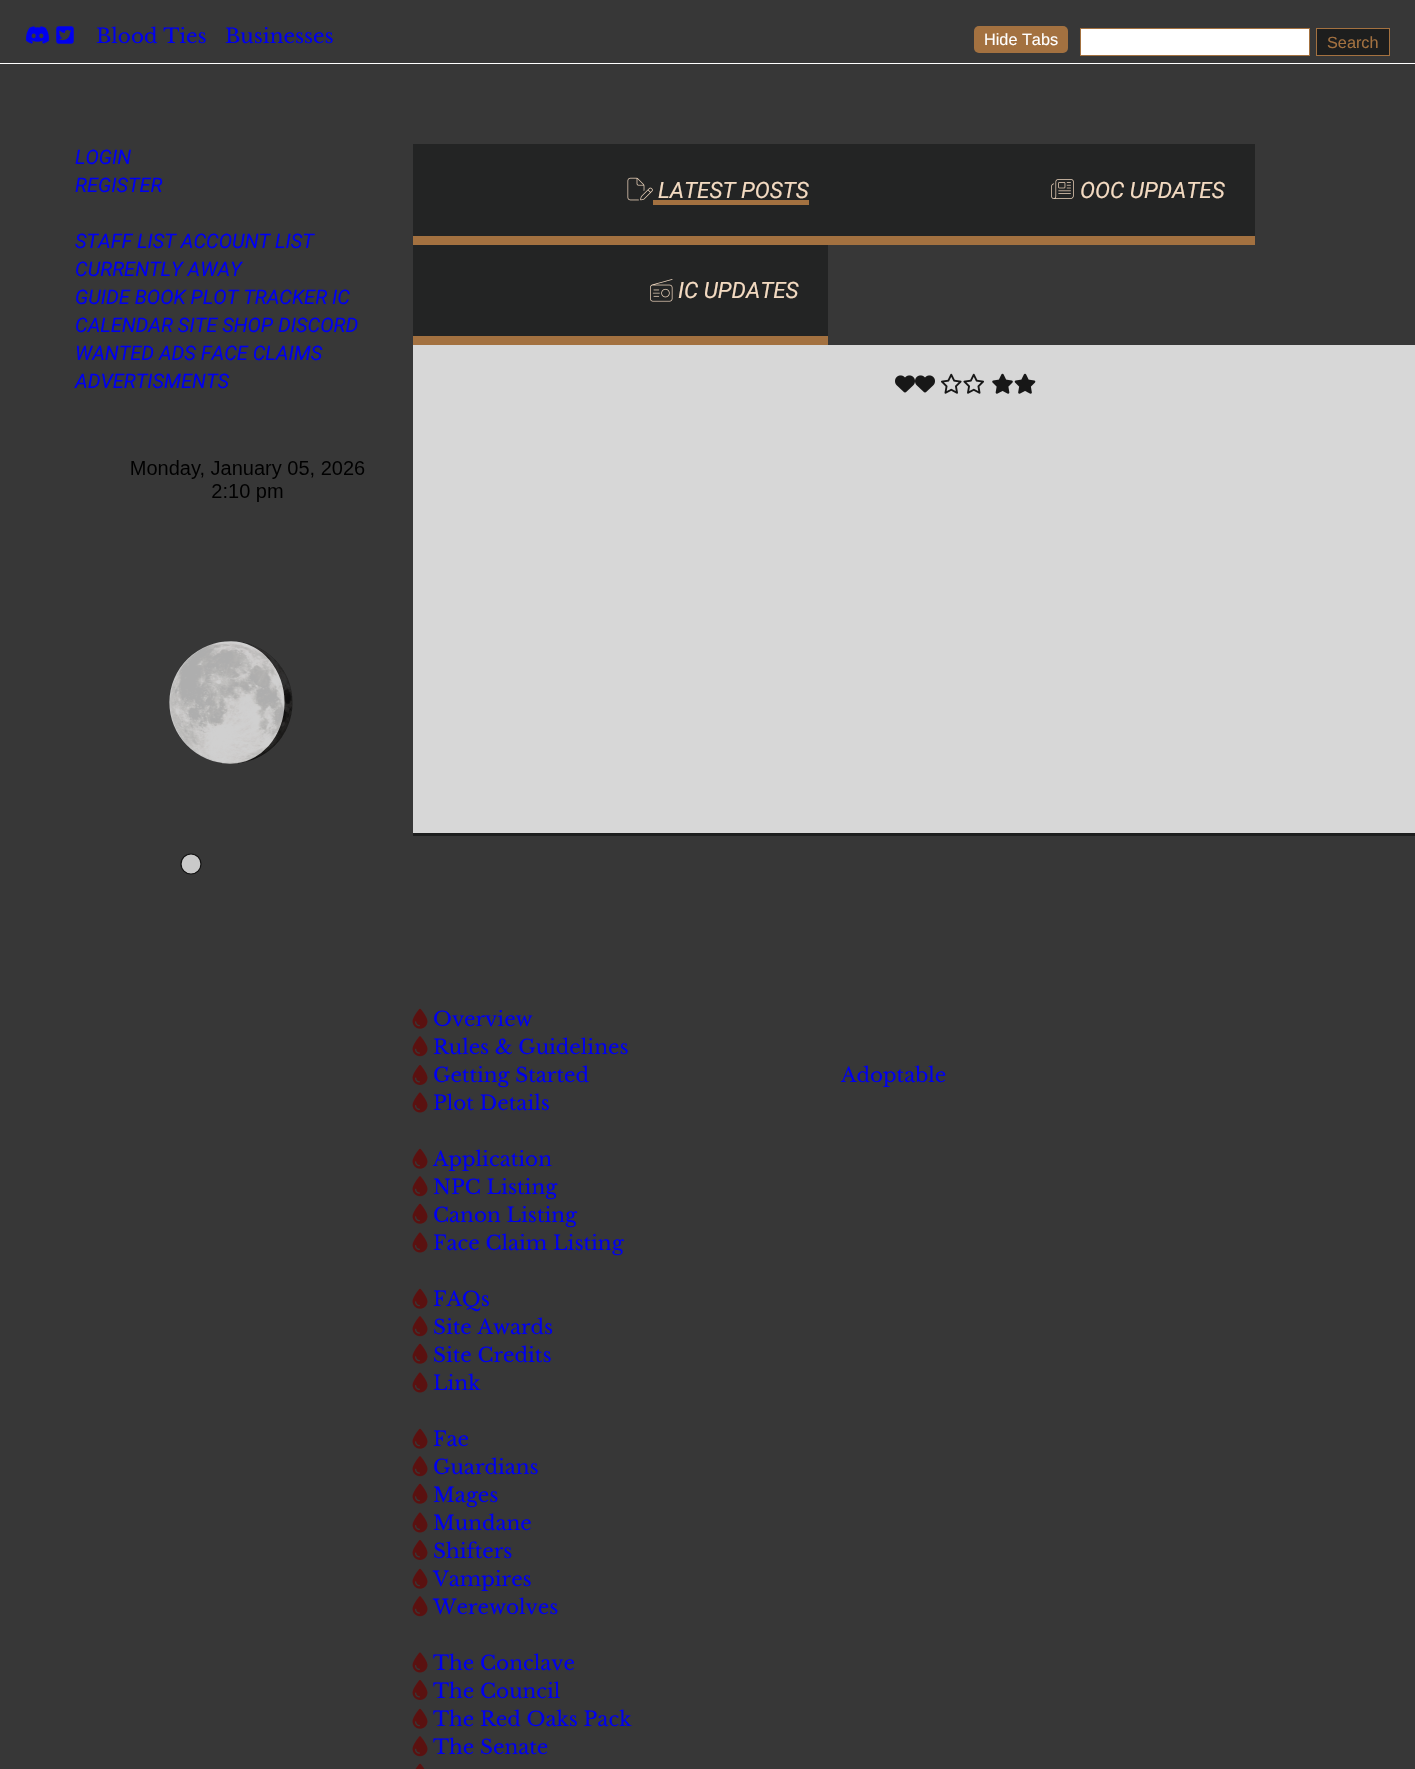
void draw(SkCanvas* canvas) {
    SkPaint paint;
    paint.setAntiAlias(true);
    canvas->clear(0xFFFFFFFF);
    paint.setColor(0xFF373737);
    canvas->drawRect(SkRect::MakeXYWH(0, 0, 1415, 63), paint);
    canvas->drawImageRect(SkImages::DeferredFromEncodedData(SkData::MakeFromFileName("img1.png")), SkRect::MakeXYWH(26, 26, 23, 18), SkSamplingOptions());
    canvas->drawImageRect(SkImages::DeferredFromEncodedData(SkData::MakeFromFileName("img2.png")), SkRect::MakeXYWH(56, 26, 18, 18), SkSamplingOptions());
    SkFont font1(fontMgr->matchFamilyStyle("Libre Baskerville", SkFontStyle::Normal()), 20);
    font1.setSubpixel(true);
    paint.setColor(0xFF0000EE);
    canvas->drawString("Blood Ties", 96, 43, font1, paint);
    canvas->drawString("Businesses", 225, 43, font1, paint);
    paint.setColor(0xFFA37140);
    canvas->drawRoundRect(SkRect::MakeXYWH(974, 26, 94, 27), 5, 5, paint);
    SkFont font2(fontMgr->matchFamilyStyle("Liberation Sans", SkFontStyle::Normal()), 16.25f);
    font2.setSubpixel(true);
    paint.setColor(0xFFFFFFFF);
    canvas->drawString("Hide Tabs", 984, 45, font2, paint);
    canvas->drawRect(SkRect::MakeXYWH(1080.5f, 28.5f, 229, 27), paint);
    paint.setStyle(SkPaint::kStroke_Style);
    paint.setStrokeWidth(1);
    paint.setColor(0xFFA37140);
    canvas->drawRect(SkRect::MakeXYWH(1080.5f, 28.5f, 229, 27), paint);
    paint.setStyle(SkPaint::kFill_Style);
    paint.setColor(0xFF1D1E1E);
    canvas->drawRect(SkRect::MakeXYWH(1316.5f, 28.5f, 73, 27), paint);
    paint.setStyle(SkPaint::kStroke_Style);
    paint.setColor(0xFFA37140);
    canvas->drawRect(SkRect::MakeXYWH(1316.5f, 28.5f, 73, 27), paint);
    paint.setStyle(SkPaint::kFill_Style);
    canvas->drawString("Search", 1327, 48, font2, paint);
    paint.setColor(0xFF373737);
    canvas->drawRect(SkRect::MakeXYWH(0, 64, 1415, 1705), paint);
    SkFont font3(fontMgr->matchFamilyStyle("Roboto", SkFontStyle::Italic()), 20);
    font3.setSubpixel(true);
    paint.setColor(0xFF0000EE);
    canvas->drawString("LOGIN", 75, 164, font3, paint);
    canvas->drawString("REGISTER", 75, 192, font3, paint);
    canvas->drawString("STAFF LIST ACCOUNT LIST", 75, 248, font3, paint);
    canvas->drawString("CURRENTLY AWAY", 75, 276, font3, paint);
    canvas->drawString("GUIDE BOOK PLOT TRACKER IC", 75, 304, font3, paint);
    canvas->drawString("CALENDAR SITE SHOP DISCORD", 75, 332, font3, paint);
    canvas->drawString("WANTED ADS FACE CLAIMS", 75, 360, font3, paint);
    canvas->drawString("ADVERTISMENTS", 75, 388, font3, paint);
    canvas->drawImageRect(SkImages::DeferredFromEncodedData(SkData::MakeFromFileName("img3.png")), SkRect::MakeXYWH(131, 460, 234, 42), SkSamplingOptions());
    canvas->drawImageRect(SkImages::DeferredFromEncodedData(SkData::MakeFromFileName("img4.png")), SkRect::MakeXYWH(169, 641, 124, 123), SkSamplingOptions());
    paint.setColor(0xFFC9C9C9);
    canvas->drawCircle(191, 864, 10, paint);
    paint.setStyle(SkPaint::kStroke_Style);
    paint.setStrokeWidth(1.2f);
    paint.setColor(0xFF111111);
    canvas->drawCircle(191, 864, 10, paint);
    paint.setStyle(SkPaint::kFill_Style);
    paint.setColor(0xFF232424);
    canvas->drawRect(SkRect::MakeXYWH(413, 144, 842, 92), paint);
    paint.setColor(0xFFA37140);
    canvas->drawRect(SkRect::MakeXYWH(413, 236, 842, 9), paint);
    canvas->drawImageRect(SkImages::DeferredFromEncodedData(SkData::MakeFromFileName("img5.png")), SkRect::MakeXYWH(627, 177, 26, 24), SkSamplingOptions());
    SkFont font4(fontMgr->matchFamilyStyle("Roboto", SkFontStyle::Italic()), 22.5f);
    font4.setSubpixel(true);
    paint.setColor(0xFFF3DAC1);
    canvas->drawString("LATEST POSTS", 658, 198, font4, paint);
    paint.setColor(0xFFA37140);
    canvas->drawRect(SkRect::MakeXYWH(653, 200, 156, 5), paint);
    canvas->drawImageRect(SkImages::DeferredFromEncodedData(SkData::MakeFromFileName("img6.png")), SkRect::MakeXYWH(1051, 179, 23, 20), SkSamplingOptions());
    paint.setColor(0xFFF3DAC1);
    canvas->drawString("OOC UPDATES", 1080, 198, font4, paint);
    paint.setColor(0xFF232424);
    canvas->drawRect(SkRect::MakeXYWH(413, 245, 415, 91), paint);
    paint.setColor(0xFFA37140);
    canvas->drawRect(SkRect::MakeXYWH(413, 336, 415, 9), paint);
    canvas->drawImageRect(SkImages::DeferredFromEncodedData(SkData::MakeFromFileName("img7.png")), SkRect::MakeXYWH(650, 279, 23, 23), SkSamplingOptions());
    paint.setColor(0xFFF3DAC1);
    canvas->drawString("IC UPDATES", 678, 298, font4, paint);
    paint.setColor(0xFFD7D7D7);
    canvas->drawRect(SkRect::MakeXYWH(413, 345, 1002, 488), paint);
    paint.setColor(0xFF1D1E1E);
    canvas->drawRect(SkRect::MakeXYWH(413, 833, 1002, 3), paint);
    canvas->drawImageRect(SkImages::DeferredFromEncodedData(SkData::MakeFromFileName("img8.png")), SkRect::MakeXYWH(895, 375, 20, 18), SkSamplingOptions());
    canvas->drawImageRect(SkImages::DeferredFromEncodedData(SkData::MakeFromFileName("img8.png")), SkRect::MakeXYWH(915, 375, 20, 18), SkSamplingOptions());
    canvas->drawImageRect(SkImages::DeferredFromEncodedData(SkData::MakeFromFileName("img9.png")), SkRect::MakeXYWH(941, 373, 21, 21), SkSamplingOptions());
    canvas->drawImageRect(SkImages::DeferredFromEncodedData(SkData::MakeFromFileName("img10.png")), SkRect::MakeXYWH(963, 373, 21, 21), SkSamplingOptions());
    canvas->drawImageRect(SkImages::DeferredFromEncodedData(SkData::MakeFromFileName("img11.png")), SkRect::MakeXYWH(992, 373, 21, 21), SkSamplingOptions());
    canvas->drawImageRect(SkImages::DeferredFromEncodedData(SkData::MakeFromFileName("img12.png")), SkRect::MakeXYWH(1014, 373, 22, 21), SkSamplingOptions());
    canvas->drawImageRect(SkImages::DeferredFromEncodedData(SkData::MakeFromFileName("img13.png")), SkRect::MakeXYWH(412, 1008, 16, 21), SkSamplingOptions());
    paint.setColor(0xFF0000EE);
    canvas->drawString("Overview", 433, 1026, font1, paint);
    canvas->drawImageRect(SkImages::DeferredFromEncodedData(SkData::MakeFromFileName("img14.png")), SkRect::MakeXYWH(412, 1036, 16, 21), SkSamplingOptions());
    canvas->drawString("Rules & Guidelines", 433, 1054, font1, paint);
    canvas->drawImageRect(SkImages::DeferredFromEncodedData(SkData::MakeFromFileName("img15.png")), SkRect::MakeXYWH(412, 1065, 16, 20), SkSamplingOptions());
    canvas->drawString("Getting Started", 433, 1082, font1, paint);
    canvas->drawImageRect(SkImages::DeferredFromEncodedData(SkData::MakeFromFileName("img16.png")), SkRect::MakeXYWH(412, 1092, 16, 21), SkSamplingOptions());
    canvas->drawString("Plot Details", 433, 1110, font1, paint);
    canvas->drawImageRect(SkImages::DeferredFromEncodedData(SkData::MakeFromFileName("img13.png")), SkRect::MakeXYWH(412, 1148, 16, 21), SkSamplingOptions());
    canvas->drawString("Application", 433, 1166, font1, paint);
    canvas->drawImageRect(SkImages::DeferredFromEncodedData(SkData::MakeFromFileName("img14.png")), SkRect::MakeXYWH(412, 1176, 16, 21), SkSamplingOptions());
    canvas->drawString("NPC Listing", 433, 1194, font1, paint);
    canvas->drawImageRect(SkImages::DeferredFromEncodedData(SkData::MakeFromFileName("img13.png")), SkRect::MakeXYWH(412, 1203, 16, 21), SkSamplingOptions());
    canvas->drawString("Canon Listing", 433, 1222, font1, paint);
    canvas->drawImageRect(SkImages::DeferredFromEncodedData(SkData::MakeFromFileName("img16.png")), SkRect::MakeXYWH(412, 1232, 16, 21), SkSamplingOptions());
    canvas->drawString("Face Claim Listing", 433, 1250, font1, paint);
    canvas->drawImageRect(SkImages::DeferredFromEncodedData(SkData::MakeFromFileName("img13.png")), SkRect::MakeXYWH(412, 1288, 16, 21), SkSamplingOptions());
    canvas->drawString("FAQs", 433, 1306, font1, paint);
    canvas->drawImageRect(SkImages::DeferredFromEncodedData(SkData::MakeFromFileName("img14.png")), SkRect::MakeXYWH(412, 1316, 16, 21), SkSamplingOptions());
    canvas->drawString("Site Awards", 433, 1334, font1, paint);
    canvas->drawImageRect(SkImages::DeferredFromEncodedData(SkData::MakeFromFileName("img13.png")), SkRect::MakeXYWH(412, 1343, 16, 21), SkSamplingOptions());
    canvas->drawString("Site Credits", 433, 1362, font1, paint);
    canvas->drawImageRect(SkImages::DeferredFromEncodedData(SkData::MakeFromFileName("img16.png")), SkRect::MakeXYWH(412, 1372, 16, 21), SkSamplingOptions());
    canvas->drawString("Link", 433, 1390, font1, paint);
    canvas->drawImageRect(SkImages::DeferredFromEncodedData(SkData::MakeFromFileName("img13.png")), SkRect::MakeXYWH(412, 1428, 16, 21), SkSamplingOptions());
    canvas->drawString("Fae", 433, 1446, font1, paint);
    canvas->drawImageRect(SkImages::DeferredFromEncodedData(SkData::MakeFromFileName("img14.png")), SkRect::MakeXYWH(412, 1456, 16, 21), SkSamplingOptions());
    canvas->drawString("Guardians", 433, 1474, font1, paint);
    canvas->drawImageRect(SkImages::DeferredFromEncodedData(SkData::MakeFromFileName("img13.png")), SkRect::MakeXYWH(412, 1483, 16, 21), SkSamplingOptions());
    canvas->drawString("Mages", 433, 1502, font1, paint);
    canvas->drawImageRect(SkImages::DeferredFromEncodedData(SkData::MakeFromFileName("img16.png")), SkRect::MakeXYWH(412, 1512, 16, 21), SkSamplingOptions());
    canvas->drawString("Mundane", 433, 1530, font1, paint);
    canvas->drawImageRect(SkImages::DeferredFromEncodedData(SkData::MakeFromFileName("img15.png")), SkRect::MakeXYWH(412, 1540, 16, 20), SkSamplingOptions());
    canvas->drawString("Shifters", 433, 1558, font1, paint);
    canvas->drawImageRect(SkImages::DeferredFromEncodedData(SkData::MakeFromFileName("img13.png")), SkRect::MakeXYWH(412, 1568, 16, 21), SkSamplingOptions());
    canvas->drawString("Vampires", 433, 1586, font1, paint);
    canvas->drawImageRect(SkImages::DeferredFromEncodedData(SkData::MakeFromFileName("img14.png")), SkRect::MakeXYWH(412, 1596, 16, 21), SkSamplingOptions());
    canvas->drawString("Werewolves", 433, 1614, font1, paint);
    canvas->drawImageRect(SkImages::DeferredFromEncodedData(SkData::MakeFromFileName("img16.png")), SkRect::MakeXYWH(412, 1652, 16, 21), SkSamplingOptions());
    canvas->drawString("The Conclave", 433, 1670, font1, paint);
    canvas->drawImageRect(SkImages::DeferredFromEncodedData(SkData::MakeFromFileName("img15.png")), SkRect::MakeXYWH(412, 1680, 16, 20), SkSamplingOptions());
    canvas->drawString("The Council", 433, 1698, font1, paint);
    canvas->drawImageRect(SkImages::DeferredFromEncodedData(SkData::MakeFromFileName("img13.png")), SkRect::MakeXYWH(412, 1708, 16, 21), SkSamplingOptions());
    canvas->drawString("The Red Oaks Pack", 433, 1726, font1, paint);
    canvas->drawImageRect(SkImages::DeferredFromEncodedData(SkData::MakeFromFileName("img14.png")), SkRect::MakeXYWH(412, 1736, 16, 21), SkSamplingOptions());
    canvas->drawString("The Senate", 433, 1754, font1, paint);
    canvas->drawImageRect(SkImages::DeferredFromEncodedData(SkData::MakeFromFileName("img17.png")), SkRect::MakeXYWH(415, 1763, 10, 6), SkSamplingOptions());
    canvas->drawString("Adoptable", 841, 1082, font1, paint);
}
